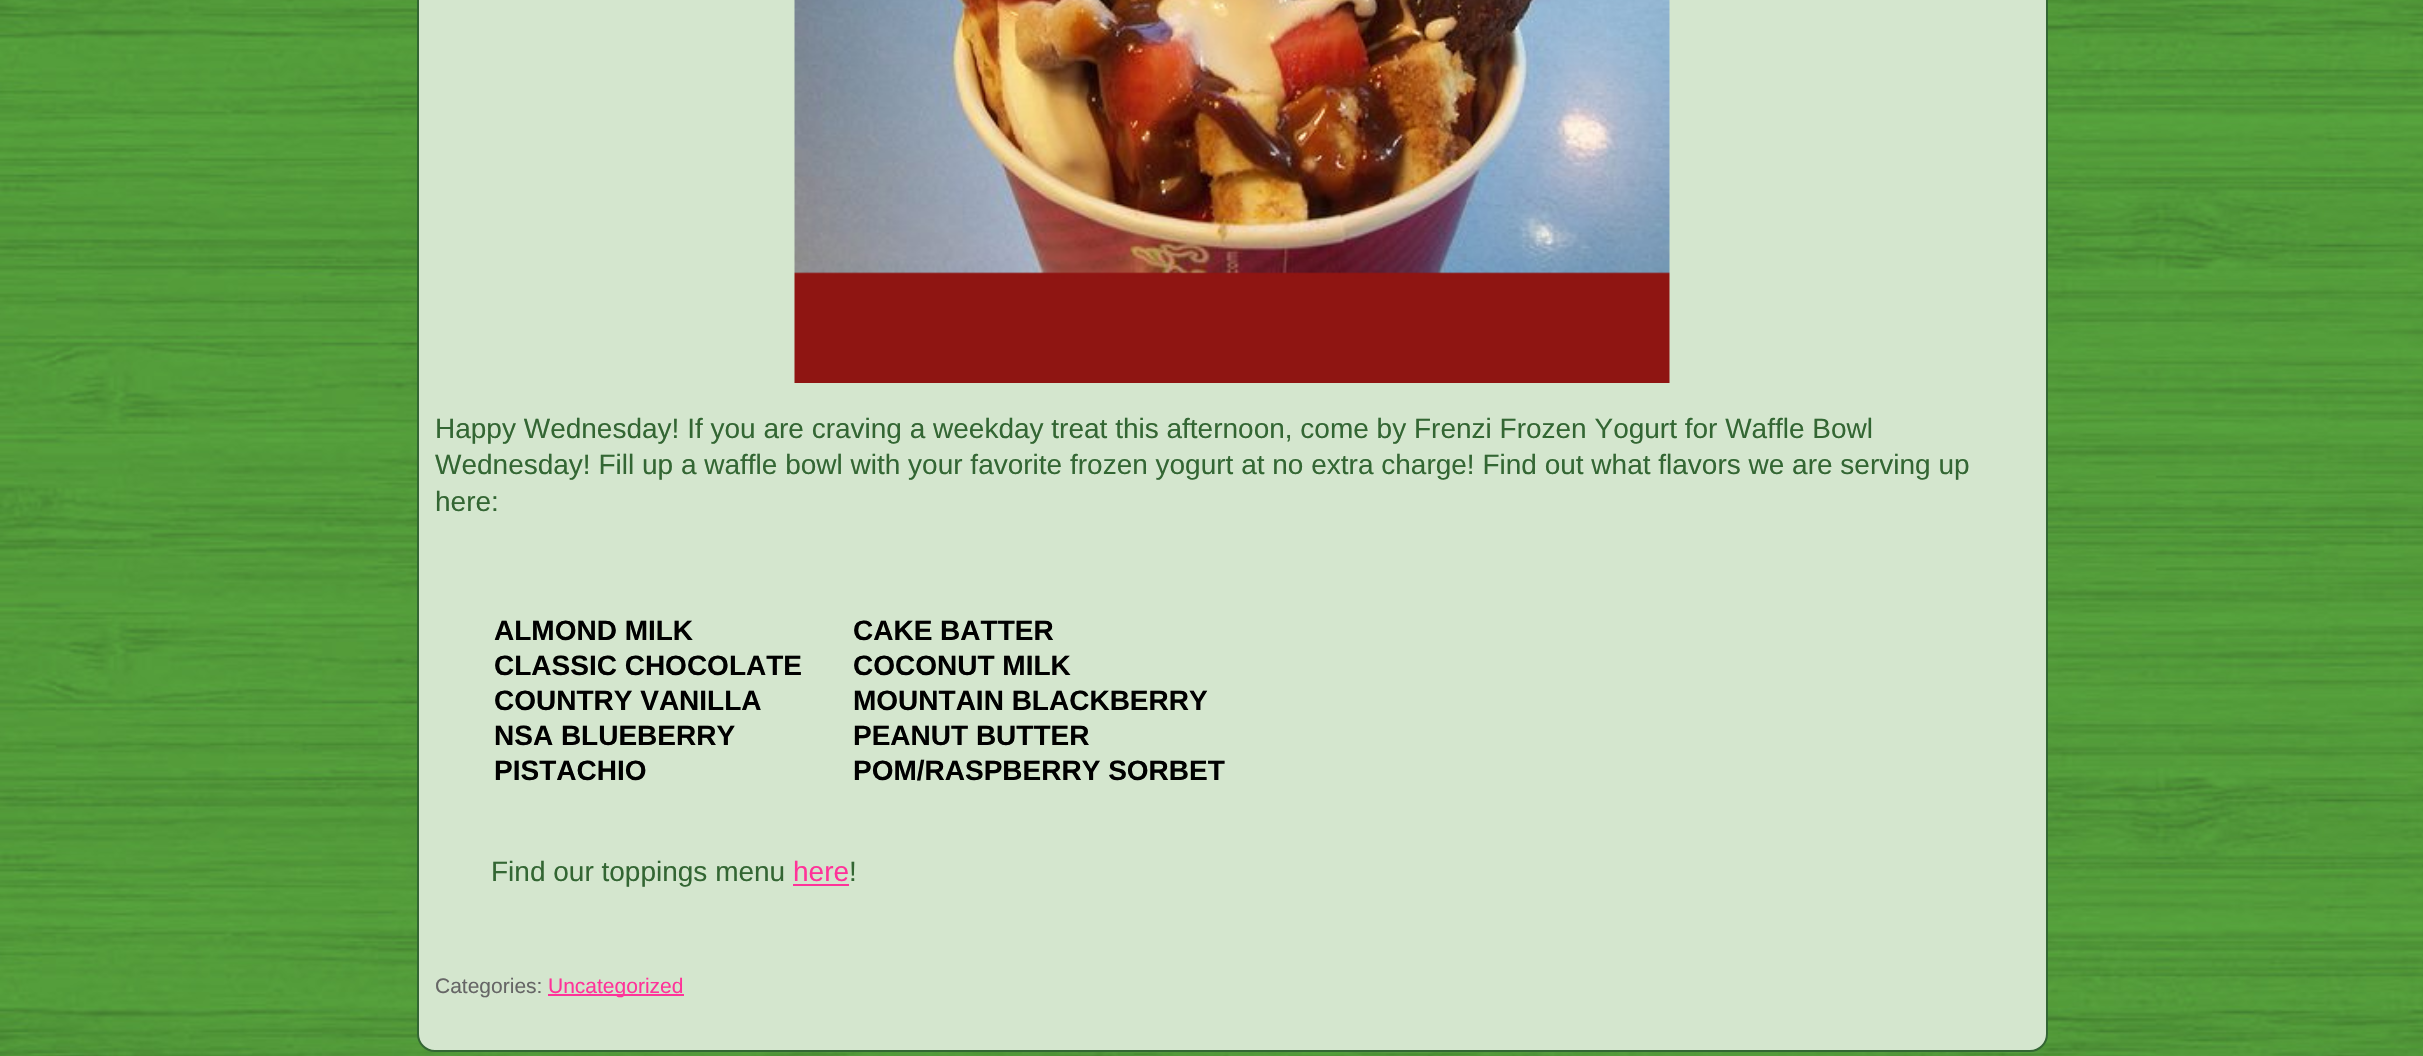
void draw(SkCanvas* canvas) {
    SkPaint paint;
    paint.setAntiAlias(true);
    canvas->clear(0xFFFFFFFF);
    canvas->drawImageRect(SkImages::DeferredFromEncodedData(SkData::MakeFromFileName("img1.png")), SkRect::MakeXYWH(0, 0, 2423, 1056), SkSamplingOptions());
    paint.setColor(0xFFD4E6CE);
    canvas->drawRoundRect(SkRect::MakeXYWH(418, -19, 1629, 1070), 17, 17, paint);
    paint.setStyle(SkPaint::kStroke_Style);
    paint.setStrokeWidth(2);
    paint.setColor(0xFF336633);
    canvas->drawRoundRect(SkRect::MakeXYWH(418, -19, 1629, 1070), 17, 17, paint);
    canvas->drawImageRect(SkImages::DeferredFromEncodedData(SkData::MakeFromFileName("img2.png")), SkRect::MakeXYWH(794, 0, 876, 383), SkSamplingOptions());
    SkFont font1(fontMgr->matchFamilyStyle("Liberation Sans", SkFontStyle::Normal()), 28);
    font1.setSubpixel(true);
    paint.setStyle(SkPaint::kFill_Style);
    canvas->drawString("Happy Wednesday! If you are craving a weekday treat this afternoon, come by Frenzi Frozen Yogurt for Waffle Bowl", 435, 438, font1, paint);
    canvas->drawString("Wednesday! Fill up a waffle bowl with your favorite frozen yogurt at no extra charge! Find out what flavors we are serving up", 435, 474, font1, paint);
    canvas->drawString("here:", 435, 511, font1, paint);
    SkFont font2(fontMgr->matchFamilyStyle("Liberation Sans", SkFontStyle::Bold()), 28);
    font2.setSubpixel(true);
    paint.setColor(0xFF000000);
    canvas->drawString("ALMOND MILK", 494, 640, font2, paint);
    canvas->drawString("CAKE BATTER", 853, 640, font2, paint);
    canvas->drawString("CLASSIC CHOCOLATE", 494, 675, font2, paint);
    canvas->drawString("COCONUT MILK", 853, 675, font2, paint);
    canvas->drawString("COUNTRY VANILLA", 494, 710, font2, paint);
    canvas->drawString("MOUNTAIN BLACKBERRY", 853, 710, font2, paint);
    canvas->drawString("NSA BLUEBERRY", 494, 745, font2, paint);
    canvas->drawString("PEANUT BUTTER", 853, 745, font2, paint);
    canvas->drawString("PISTACHIO", 494, 780, font2, paint);
    canvas->drawString("POM/RASPBERRY SORBET", 853, 780, font2, paint);
    paint.setColor(0xFF336633);
    canvas->drawString("Find our toppings menu", 491, 881, font1, paint);
    paint.setColor(0xFFFF3399);
    canvas->drawString("here", 793, 881, font1, paint);
    canvas->drawRect(SkRect::MakeXYWH(793, 884, 56, 2), paint);
    paint.setColor(0xFF336633);
    canvas->drawString("!", 849, 881, font1, paint);
    SkFont font3(fontMgr->matchFamilyStyle("Liberation Sans", SkFontStyle::Normal()), 21);
    font3.setSubpixel(true);
    paint.setColor(0xFF666666);
    canvas->drawString("Categories:", 435, 993, font3, paint);
    paint.setColor(0xFFFF3399);
    canvas->drawRect(SkRect::MakeXYWH(548, 994, 136, 2), paint);
    canvas->drawString("Uncategorized", 548, 993, font3, paint);
}
